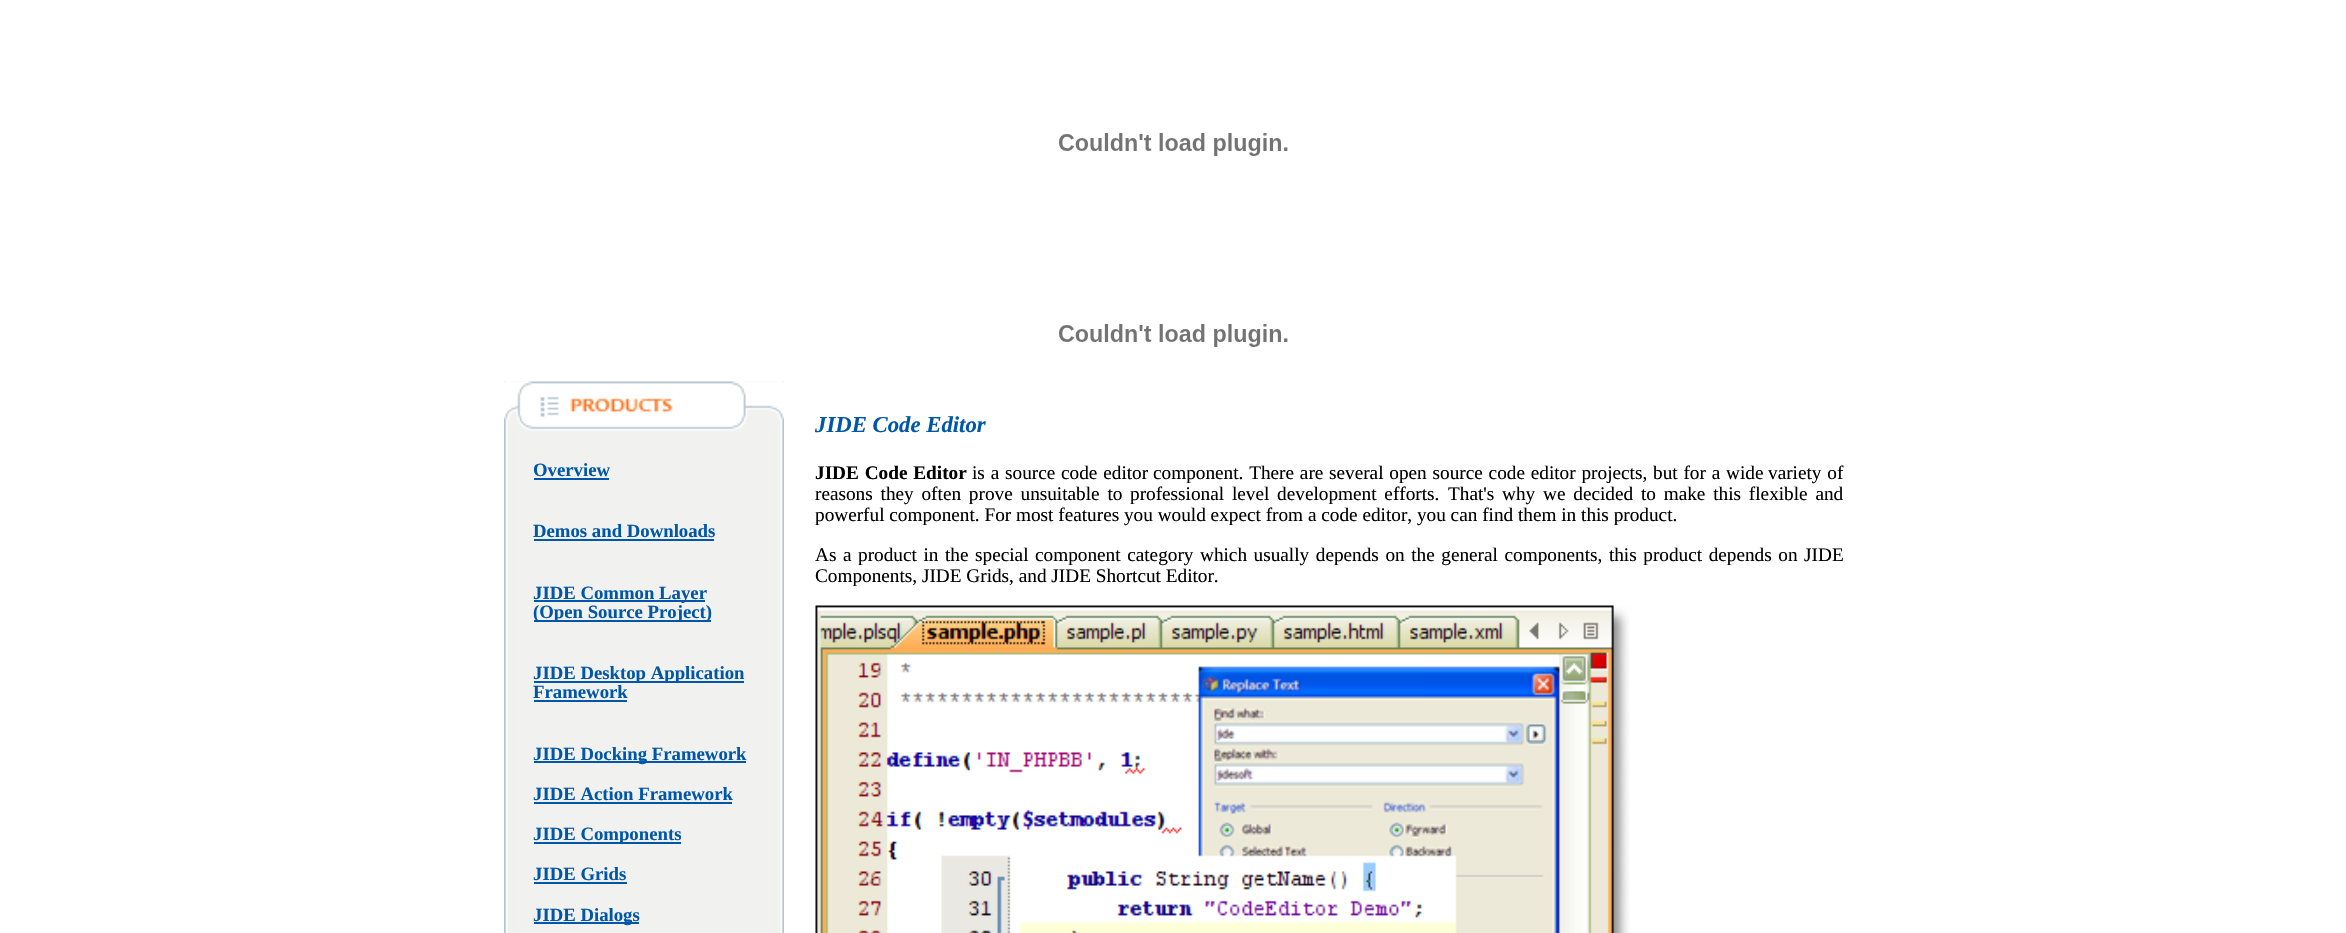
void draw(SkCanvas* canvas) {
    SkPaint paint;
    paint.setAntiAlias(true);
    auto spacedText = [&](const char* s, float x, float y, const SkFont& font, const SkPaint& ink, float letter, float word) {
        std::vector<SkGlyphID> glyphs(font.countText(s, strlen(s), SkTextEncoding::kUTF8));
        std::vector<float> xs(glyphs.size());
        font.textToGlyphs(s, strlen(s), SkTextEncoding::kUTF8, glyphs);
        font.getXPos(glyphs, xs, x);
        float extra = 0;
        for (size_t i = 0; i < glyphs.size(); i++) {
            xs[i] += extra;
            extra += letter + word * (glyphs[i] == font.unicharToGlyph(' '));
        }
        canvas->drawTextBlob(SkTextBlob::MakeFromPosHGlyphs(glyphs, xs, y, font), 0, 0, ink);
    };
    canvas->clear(0xFFFFFFFF);
    canvas->drawImageRect(SkImages::DeferredFromEncodedData(SkData::MakeFromFileName("img1.png")), SkRect::MakeXYWH(1059, 133, 229, 23), SkSamplingOptions());
    canvas->drawImageRect(SkImages::DeferredFromEncodedData(SkData::MakeFromFileName("img1.png")), SkRect::MakeXYWH(1059, 324, 229, 23), SkSamplingOptions());
    canvas->drawImageRect(SkImages::DeferredFromEncodedData(SkData::MakeFromFileName("img2.png")), SkRect::MakeXYWH(504, 381, 280, 552), SkSamplingOptions());
    canvas->drawImageRect(SkImages::DeferredFromEncodedData(SkData::MakeFromFileName("img3.png")), SkRect::MakeXYWH(504, 381, 280, 50), SkSamplingOptions());
    SkFont font1(fontMgr->matchFamilyStyle("Liberation Serif", SkFontStyle::Bold()), 18.75f);
    font1.setSubpixel(true);
    paint.setColor(0xFF0057A9);
    canvas->drawString("Overview", 533, 476, font1, paint);
    canvas->drawRect(SkRect::MakeXYWH(534, 478, 75, 2), paint);
    canvas->drawString("Demos and Downloads", 533, 537, font1, paint);
    canvas->drawRect(SkRect::MakeXYWH(534, 539, 180, 2), paint);
    canvas->drawRect(SkRect::MakeXYWH(534, 600, 171, 2), paint);
    canvas->drawString("JIDE Common Layer", 533, 599, font1, paint);
    canvas->drawRect(SkRect::MakeXYWH(534, 620, 177, 2), paint);
    canvas->drawString("(Open Source Project)", 533, 618, font1, paint);
    canvas->drawRect(SkRect::MakeXYWH(534, 681, 210, 2), paint);
    canvas->drawString("JIDE Desktop Application", 533, 679, font1, paint);
    canvas->drawString("Framework", 533, 698, font1, paint);
    canvas->drawRect(SkRect::MakeXYWH(534, 700, 93, 2), paint);
    canvas->drawRect(SkRect::MakeXYWH(534, 761, 212, 2), paint);
    canvas->drawString("JIDE Docking Framework", 533, 760, font1, paint);
    canvas->drawString("JIDE Action Framework", 533, 800, font1, paint);
    canvas->drawRect(SkRect::MakeXYWH(534, 802, 198, 2), paint);
    canvas->drawRect(SkRect::MakeXYWH(534, 842, 147, 2), paint);
    canvas->drawString("JIDE Components", 533, 840, font1, paint);
    canvas->drawString("JIDE Grids", 533, 880, font1, paint);
    canvas->drawRect(SkRect::MakeXYWH(534, 882, 93, 2), paint);
    canvas->drawRect(SkRect::MakeXYWH(534, 922, 105, 2), paint);
    canvas->drawString("JIDE Dialogs", 533, 921, font1, paint);
    SkFont font2(fontMgr->matchFamilyStyle("Liberation Serif", SkFontStyle::BoldItalic()), 22.75f);
    font2.setSubpixel(true);
    canvas->drawString("JIDE Code Editor", 815, 432, font2, paint);
    SkFont font3(fontMgr->matchFamilyStyle("Liberation Serif", SkFontStyle::Bold()), 19.25f);
    font3.setSubpixel(true);
    paint.setColor(0xFF000000);
    spacedText("JIDE Code Editor", 815, 479, font3, paint, 0, 1);
    SkFont font4(fontMgr->matchFamilyStyle("Liberation Serif", SkFontStyle::Normal()), 19.25f);
    font4.setSubpixel(true);
    spacedText("is a source code editor", 972, 479, font4, paint, 0, 1);
    spacedText("component. There are", 1153, 479, font4, paint, 0, 1);
    spacedText("several open source code editor projects, but for a wide", 1329, 479, font4, paint, 0, 1);
    spacedText("variety of", 1768, 479, font4, paint, 0, 1);
    spacedText("reasons they often prove unsuitable to", 815, 500, font4, paint, 0, 3);
    spacedText("professional level development efforts.", 1130, 500, font4, paint, 0, 3);
    spacedText("That's why we decided to make this flexible and", 1448, 500, font4, paint, 0, 3);
    canvas->drawString("powerful component. For most features you would expect from a code editor, you can find them in this product.", 815, 521, font4, paint);
    spacedText("As a product in the special component category which usually depends on the general components, this product depends on JIDE", 815, 561, font4, paint, 0, 1.75f);
    canvas->drawString("Components, JIDE Grids, and JIDE Shortcut Editor.", 815, 582, font4, paint);
    canvas->drawImageRect(SkImages::DeferredFromEncodedData(SkData::MakeFromFileName("img4.png")), SkRect::MakeXYWH(815, 605, 815, 328), SkSamplingOptions());
}
